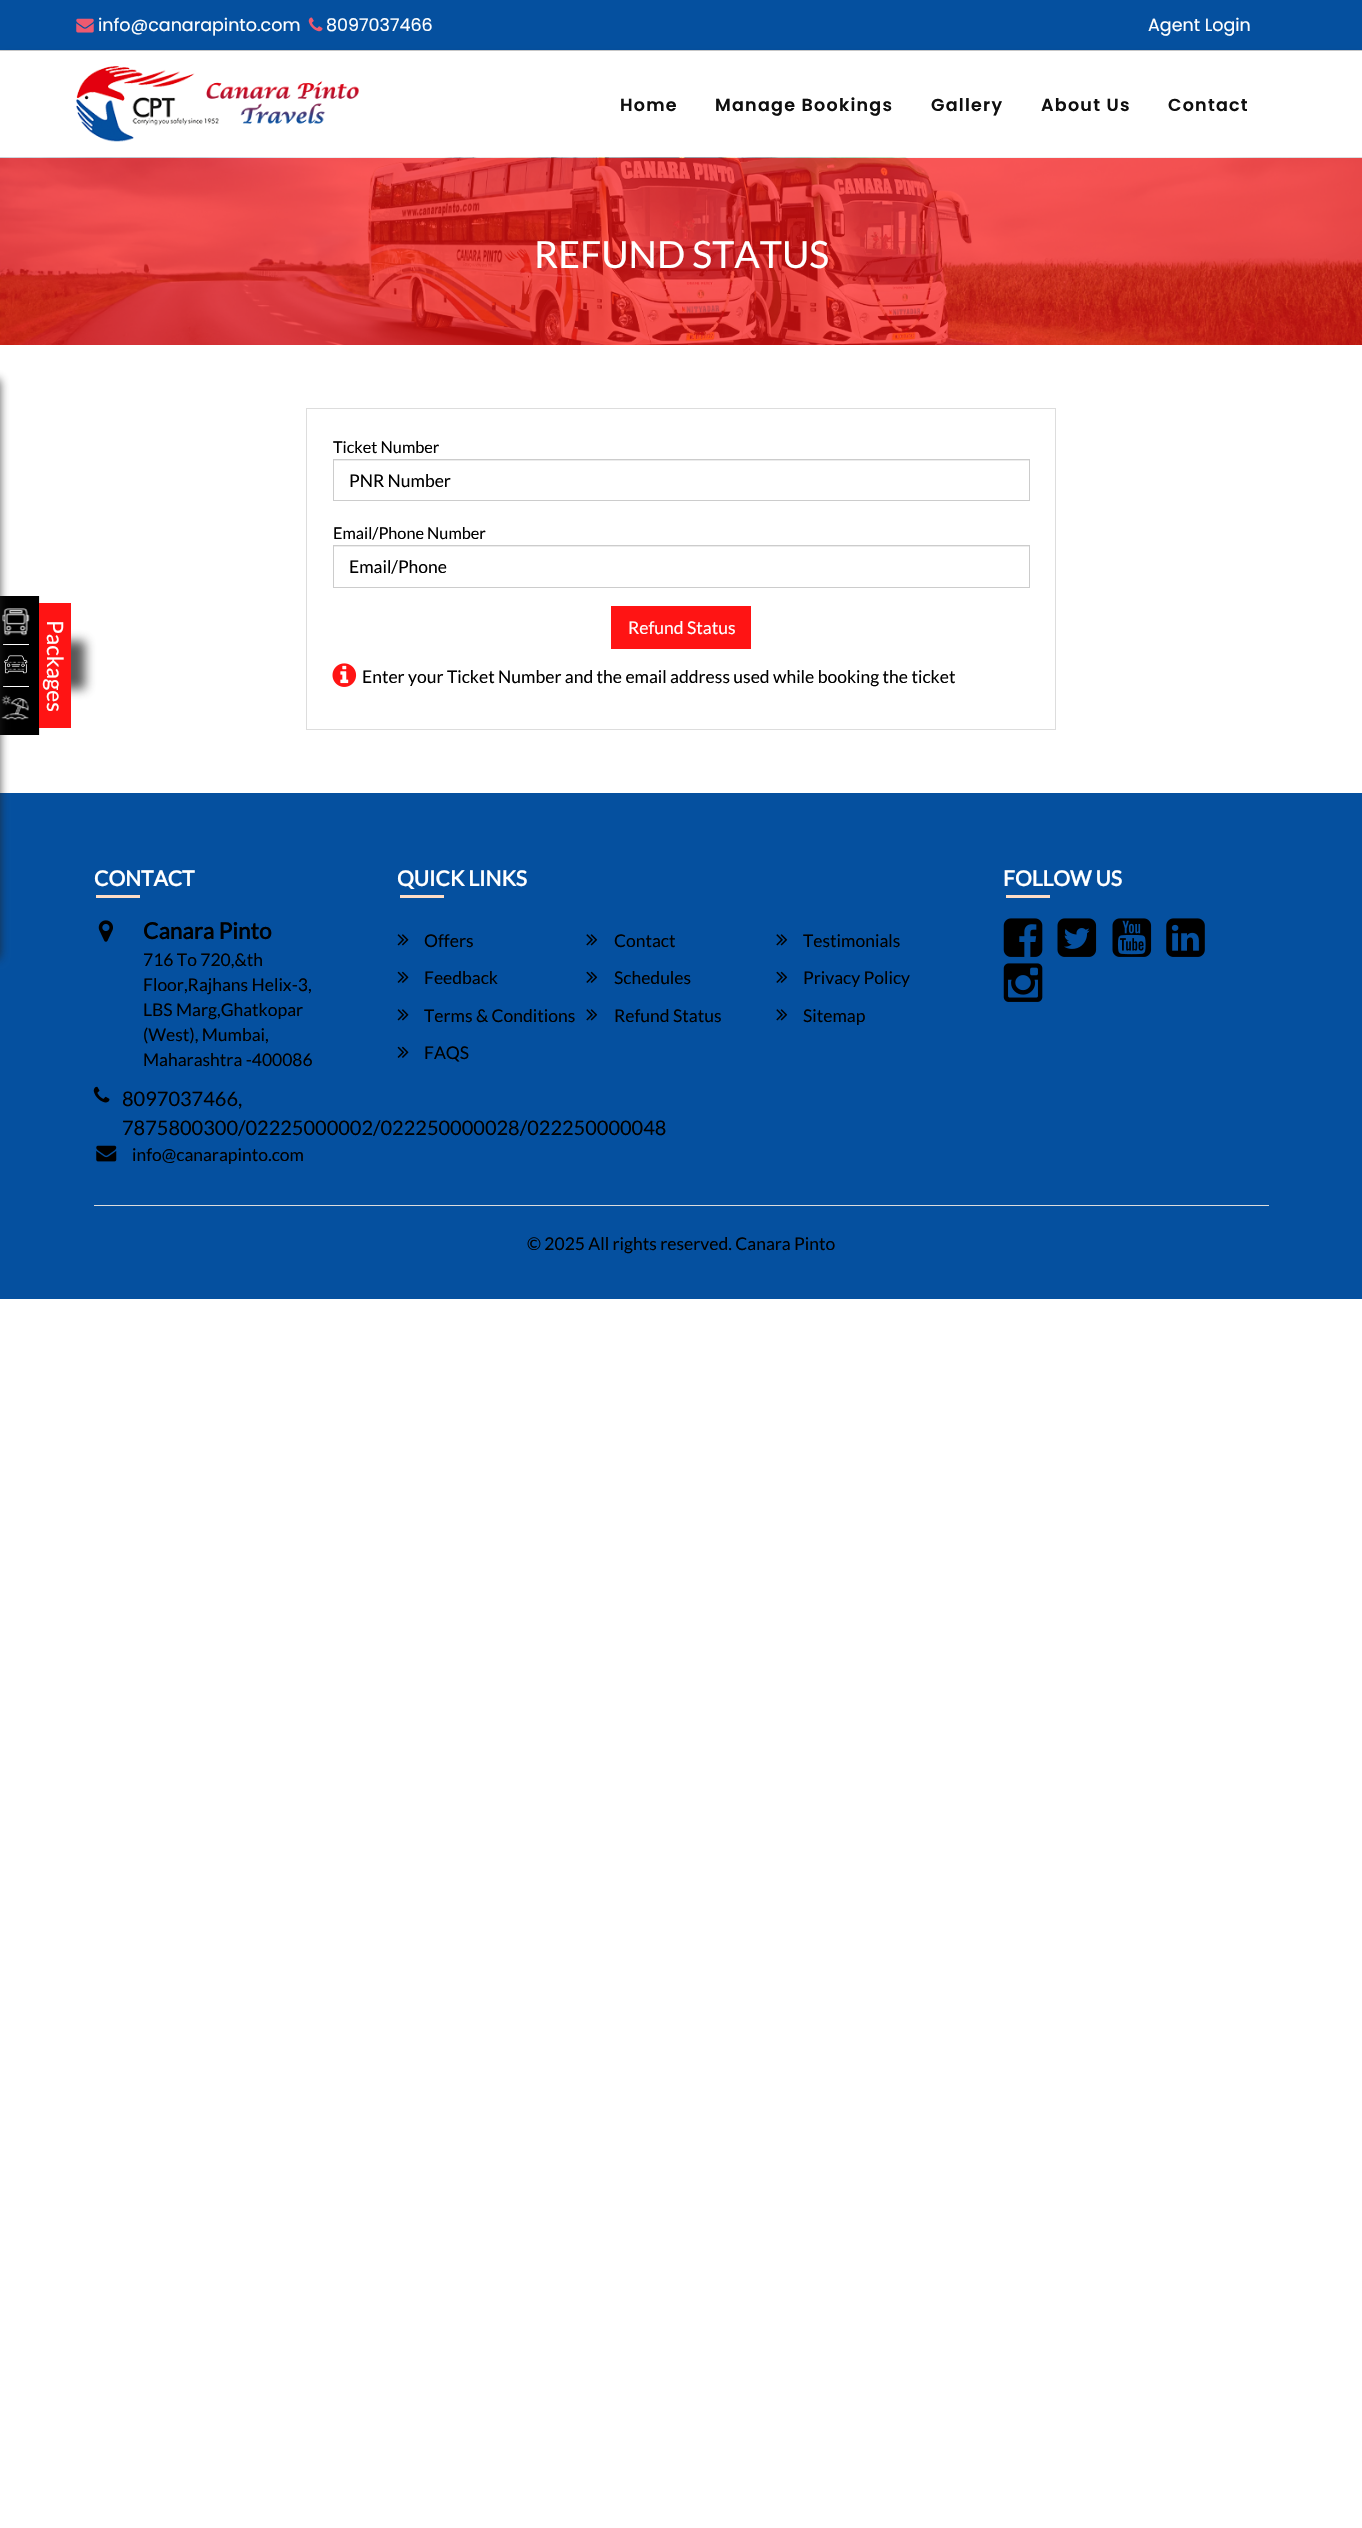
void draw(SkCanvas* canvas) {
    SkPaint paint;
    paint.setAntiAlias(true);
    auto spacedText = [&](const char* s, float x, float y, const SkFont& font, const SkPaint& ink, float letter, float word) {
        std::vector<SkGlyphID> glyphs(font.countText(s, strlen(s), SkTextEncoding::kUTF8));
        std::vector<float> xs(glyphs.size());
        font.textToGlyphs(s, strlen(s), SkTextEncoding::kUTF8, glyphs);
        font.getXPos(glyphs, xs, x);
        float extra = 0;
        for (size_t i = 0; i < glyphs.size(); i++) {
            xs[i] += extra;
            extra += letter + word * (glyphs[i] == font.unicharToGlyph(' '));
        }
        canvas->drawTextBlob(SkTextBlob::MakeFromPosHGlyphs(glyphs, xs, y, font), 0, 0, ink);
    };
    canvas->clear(0xFFFFFFFF);
    paint.setColor(0xFF05509F);
    canvas->drawRect(SkRect::MakeXYWH(0, 0, 1362, 50), paint);
    paint.setColor(0xFFCDCDCD);
    canvas->drawRect(SkRect::MakeXYWH(0, 50, 1362, 1), paint);
    canvas->drawImageRect(SkImages::DeferredFromEncodedData(SkData::MakeFromFileName("img1.png")), SkRect::MakeXYWH(76, 18, 18, 15), SkSamplingOptions());
    SkFont font1(fontMgr->matchFamilyStyle("Poppins", SkFontStyle::Normal()), 17.5f);
    font1.setSubpixel(true);
    paint.setColor(0xFFFFFFFF);
    canvas->drawString("info@canarapinto.com", 98, 31, font1, paint);
    canvas->drawImageRect(SkImages::DeferredFromEncodedData(SkData::MakeFromFileName("img2.png")), SkRect::MakeXYWH(308, 17, 15, 15), SkSamplingOptions());
    canvas->drawString("8097037466", 326, 31, font1, paint);
    canvas->drawString("Agent Login", 1148, 31, font1, paint);
    canvas->save();
    canvas->clipPath(SkPathBuilder(SkPathFillType::kEvenOdd).moveTo(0, 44).lineTo(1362, 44).lineTo(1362, 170).lineTo(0, 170).close().moveTo(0, 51).lineTo(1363, 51).lineTo(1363, 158).lineTo(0, 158).close().detach(), true);
    paint.setColor(0x3B000000);
    paint.setMaskFilter(SkMaskFilter::MakeBlur(kNormal_SkBlurStyle, 3));
    canvas->drawRect(SkRect::MakeXYWH(0, 54, 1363, 106), paint);
    paint.setMaskFilter(nullptr);
    canvas->restore();
    canvas->drawImageRect(SkImages::DeferredFromEncodedData(SkData::MakeFromFileName("img3.png")), SkRect::MakeXYWH(76, 66, 283, 76), SkSamplingOptions());
    SkFont font2(fontMgr->matchFamilyStyle("Poppins", SkFontStyle(600, SkFontStyle::kNormal_Width, SkFontStyle::kUpright_Slant)), 17.5f);
    font2.setSubpixel(true);
    paint.setColor(0xFF0F0F0F);
    spacedText("Home", 620, 111, font2, paint, 1.25f, 0);
    spacedText("Manage Bookings", 715, 111, font2, paint, 1.25f, 0);
    spacedText("Gallery", 931, 111, font2, paint, 1.25f, 0);
    spacedText("About Us", 1041, 111, font2, paint, 1.25f, 0);
    spacedText("Contact", 1168, 111, font2, paint, 1.25f, 0);
    canvas->drawImageRect(SkImages::DeferredFromEncodedData(SkData::MakeFromFileName("img4.png")), SkRect::MakeXYWH(0, 157, 1362, 188), SkSamplingOptions());
    SkFont font3(fontMgr->matchFamilyStyle("Lato", SkFontStyle::Normal()), 37.5f);
    font3.setSubpixel(true);
    paint.setColor(0xFFFFFFFF);
    canvas->drawString("REFUND STATUS", 534, 268, font3, paint);
    paint.setColor(0xBF222222);
    paint.setMaskFilter(SkMaskFilter::MakeBlur(kNormal_SkBlurStyle, 5));
    canvas->drawRect(SkRect::MakeXYWH(-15, 641, 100, 48), paint);
    paint.setMaskFilter(nullptr);
    paint.setColor(0xFF000000);
    canvas->drawRect(SkRect::MakeXYWH(0, 597, 38, 137), paint);
    paint.setStyle(SkPaint::kStroke_Style);
    paint.setStrokeWidth(1.2f);
    canvas->drawPath(SkPathBuilder().moveTo(38.5f, 596.5f).lineTo(38.5f, 734.5f).lineTo(-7.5f, 734.5f).lineTo(-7.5f, 596.5f).close().detach(), paint);
    canvas->drawImageRect(SkImages::DeferredFromEncodedData(SkData::MakeFromFileName("img5.png")), SkRect::MakeXYWH(2, 608, 28, 28), SkSamplingOptions());
    paint.setStyle(SkPaint::kFill_Style);
    paint.setColor(0xFFFFFFFF);
    canvas->drawRect(SkRect::MakeXYWH(3, 644, 26, 1), paint);
    canvas->drawImageRect(SkImages::DeferredFromEncodedData(SkData::MakeFromFileName("img6.png")), SkRect::MakeXYWH(4, 655, 24, 19), SkSamplingOptions());
    canvas->drawRect(SkRect::MakeXYWH(3, 686, 26, 1), paint);
    canvas->drawImageRect(SkImages::DeferredFromEncodedData(SkData::MakeFromFileName("img7.png")), SkRect::MakeXYWH(1, 695, 28, 25), SkSamplingOptions());
    paint.setColor(0xFF05509F);
    canvas->drawRect(SkRect::MakeXYWH(0, 793, 1362, 506), paint);
    paint.setColor(0xBF222222);
    paint.setMaskFilter(SkMaskFilter::MakeBlur(kNormal_SkBlurStyle, 5));
    canvas->drawRoundRect(SkRect::MakeXYWH(-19, 379, 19, 580), 4, 4, paint);
    paint.setMaskFilter(nullptr);
    paint.setColor(0xFFFF1414);
    canvas->drawRect(SkRect::MakeXYWH(39, 603, 32, 125), paint);
    SkFont font4(fontMgr->matchFamilyStyle("Lato", SkFontStyle::Normal()), 22.5f);
    font4.setSubpixel(true);
    paint.setColor(0xFFFFFFFF);
    canvas->save();
    canvas->rotate(90, 47, 620);
    canvas->drawString("Packages", 47, 620, font4, paint);
    canvas->restore();
    paint.setStyle(SkPaint::kStroke_Style);
    paint.setStrokeWidth(1);
    paint.setColor(0xFFDDDDDD);
    canvas->drawRect(SkRect::MakeXYWH(306.5f, 408.5f, 749, 321), paint);
    SkFont font5(fontMgr->matchFamilyStyle("Lato", SkFontStyle::Normal()), 16.25f);
    font5.setSubpixel(true);
    paint.setStyle(SkPaint::kFill_Style);
    paint.setColor(0xFF000000);
    canvas->drawString("Ticket Number", 333, 453, font5, paint);
    paint.setColor(0xFFECECEC);
    canvas->drawRect(SkRect::MakeXYWH(334, 460, 695, 1), paint);
    paint.setStyle(SkPaint::kStroke_Style);
    paint.setColor(0xFFCCCCCC);
    canvas->drawRect(SkRect::MakeXYWH(333.5f, 459.5f, 696, 41), paint);
    SkFont font6(fontMgr->matchFamilyStyle("Lato", SkFontStyle::Normal()), 17.5f);
    font6.setSubpixel(true);
    paint.setStyle(SkPaint::kFill_Style);
    paint.setColor(0xFF000000);
    canvas->drawString("PNR Number", 349, 487, font6, paint);
    canvas->drawString("Email/Phone Number", 333, 539, font5, paint);
    paint.setColor(0xFFECECEC);
    canvas->drawRect(SkRect::MakeXYWH(334, 546, 695, 1), paint);
    paint.setStyle(SkPaint::kStroke_Style);
    paint.setColor(0xFFCCCCCC);
    canvas->drawRect(SkRect::MakeXYWH(333.5f, 545.5f, 696, 42), paint);
    paint.setStyle(SkPaint::kFill_Style);
    paint.setColor(0xFF000000);
    canvas->drawString("Email/Phone", 349, 573, font6, paint);
    paint.setColor(0xFFFF1414);
    canvas->drawRect(SkRect::MakeXYWH(611, 606, 140, 43), paint);
    paint.setColor(0xFFFFFFFF);
    canvas->drawString("Refund Status", 628, 634, font6, paint);
    canvas->drawImageRect(SkImages::DeferredFromEncodedData(SkData::MakeFromFileName("img8.png")), SkRect::MakeXYWH(332, 663, 25, 24), SkSamplingOptions());
    paint.setColor(0xFF000000);
    canvas->drawString("Enter your Ticket Number and the email address used while booking the ticket", 362, 683, font6, paint);
    SkFont font7(fontMgr->matchFamilyStyle("Lato", SkFontStyle::Bold()), 21);
    font7.setSubpixel(true);
    paint.setColor(0xFFFFFFFF);
    canvas->drawString("CONTACT", 94, 886, font7, paint);
    paint.setColor(0xFFFFDDC6);
    canvas->drawRect(SkRect::MakeXYWH(96, 895, 44, 3), paint);
    canvas->drawImageRect(SkImages::DeferredFromEncodedData(SkData::MakeFromFileName("img9.png")), SkRect::MakeXYWH(98, 920, 15, 22), SkSamplingOptions());
    SkFont font8(fontMgr->matchFamilyStyle("Lato", SkFontStyle::Bold()), 22.5f);
    font8.setSubpixel(true);
    paint.setColor(0xFF000000);
    canvas->drawString("Canara Pinto", 143, 939, font8, paint);
    canvas->drawString("716 To 720,&th", 143, 966, font6, paint);
    canvas->drawString("Floor,Rajhans Helix-3,", 143, 991, font6, paint);
    canvas->drawString("LBS Marg,Ghatkopar", 143, 1016, font6, paint);
    canvas->drawString("(West), Mumbai,", 143, 1041, font6, paint);
    canvas->drawString("Maharashtra -400086", 143, 1066, font6, paint);
    canvas->drawImageRect(SkImages::DeferredFromEncodedData(SkData::MakeFromFileName("img10.png")), SkRect::MakeXYWH(93, 1086, 17, 17), SkSamplingOptions());
    SkFont font9(fontMgr->matchFamilyStyle("Lato", SkFontStyle::Normal()), 20);
    font9.setSubpixel(true);
    canvas->drawString("8097037466,", 122, 1106, font9, paint);
    canvas->drawString("7875800300/02225000002/022250000028/022250000048", 122, 1135, font9, paint);
    canvas->drawImageRect(SkImages::DeferredFromEncodedData(SkData::MakeFromFileName("img11.png")), SkRect::MakeXYWH(96, 1145, 21, 17), SkSamplingOptions());
    canvas->drawString("info@canarapinto.com", 132, 1161, font6, paint);
    paint.setColor(0xFFFFFFFF);
    canvas->drawString("QUICK LINKS", 397, 886, font7, paint);
    paint.setColor(0xFFFFDDC6);
    canvas->drawRect(SkRect::MakeXYWH(400, 895, 44, 3), paint);
    canvas->drawImageRect(SkImages::DeferredFromEncodedData(SkData::MakeFromFileName("img12.png")), SkRect::MakeXYWH(397, 934, 12, 12), SkSamplingOptions());
    paint.setColor(0xFF000000);
    canvas->drawString("Offers", 424, 947, font6, paint);
    canvas->drawImageRect(SkImages::DeferredFromEncodedData(SkData::MakeFromFileName("img13.png")), SkRect::MakeXYWH(586, 934, 12, 12), SkSamplingOptions());
    canvas->drawString("Contact", 614, 947, font6, paint);
    canvas->drawImageRect(SkImages::DeferredFromEncodedData(SkData::MakeFromFileName("img13.png")), SkRect::MakeXYWH(776, 934, 12, 12), SkSamplingOptions());
    canvas->drawString("Testimonials", 803, 947, font6, paint);
    canvas->drawImageRect(SkImages::DeferredFromEncodedData(SkData::MakeFromFileName("img14.png")), SkRect::MakeXYWH(397, 971, 12, 12), SkSamplingOptions());
    canvas->drawString("Feedback", 424, 984, font6, paint);
    canvas->drawImageRect(SkImages::DeferredFromEncodedData(SkData::MakeFromFileName("img15.png")), SkRect::MakeXYWH(586, 971, 12, 12), SkSamplingOptions());
    canvas->drawString("Schedules", 614, 984, font6, paint);
    canvas->drawImageRect(SkImages::DeferredFromEncodedData(SkData::MakeFromFileName("img15.png")), SkRect::MakeXYWH(776, 971, 12, 12), SkSamplingOptions());
    canvas->drawString("Privacy Policy", 803, 984, font6, paint);
    canvas->drawImageRect(SkImages::DeferredFromEncodedData(SkData::MakeFromFileName("img12.png")), SkRect::MakeXYWH(397, 1009, 12, 12), SkSamplingOptions());
    canvas->drawString("Terms & Conditions", 424, 1022, font6, paint);
    canvas->drawImageRect(SkImages::DeferredFromEncodedData(SkData::MakeFromFileName("img13.png")), SkRect::MakeXYWH(586, 1009, 12, 12), SkSamplingOptions());
    canvas->drawString("Refund Status", 614, 1022, font6, paint);
    canvas->drawImageRect(SkImages::DeferredFromEncodedData(SkData::MakeFromFileName("img13.png")), SkRect::MakeXYWH(776, 1009, 12, 12), SkSamplingOptions());
    canvas->drawString("Sitemap", 803, 1022, font6, paint);
    canvas->drawImageRect(SkImages::DeferredFromEncodedData(SkData::MakeFromFileName("img14.png")), SkRect::MakeXYWH(397, 1046, 12, 12), SkSamplingOptions());
    canvas->drawString("FAQS", 424, 1059, font6, paint);
    paint.setColor(0xFFFFFFFF);
    canvas->drawString("FOLLOW US", 1003, 886, font7, paint);
    paint.setColor(0xFFFFDDC6);
    canvas->drawRect(SkRect::MakeXYWH(1006, 895, 44, 3), paint);
    canvas->drawImageRect(SkImages::DeferredFromEncodedData(SkData::MakeFromFileName("img16.png")), SkRect::MakeXYWH(1003, 918, 40, 39), SkSamplingOptions());
    canvas->drawImageRect(SkImages::DeferredFromEncodedData(SkData::MakeFromFileName("img17.png")), SkRect::MakeXYWH(1057, 918, 40, 39), SkSamplingOptions());
    canvas->drawImageRect(SkImages::DeferredFromEncodedData(SkData::MakeFromFileName("img18.png")), SkRect::MakeXYWH(1112, 918, 40, 39), SkSamplingOptions());
    canvas->drawImageRect(SkImages::DeferredFromEncodedData(SkData::MakeFromFileName("img19.png")), SkRect::MakeXYWH(1166, 918, 39, 39), SkSamplingOptions());
    canvas->drawImageRect(SkImages::DeferredFromEncodedData(SkData::MakeFromFileName("img20.png")), SkRect::MakeXYWH(1003, 963, 40, 39), SkSamplingOptions());
    paint.setColor(0xFFDDDDDD);
    canvas->drawRect(SkRect::MakeXYWH(94, 1205, 1175, 1), paint);
    paint.setColor(0xFF000000);
    canvas->drawString("© 2025 All rights reserved. Canara Pinto", 527, 1250, font6, paint);
}
